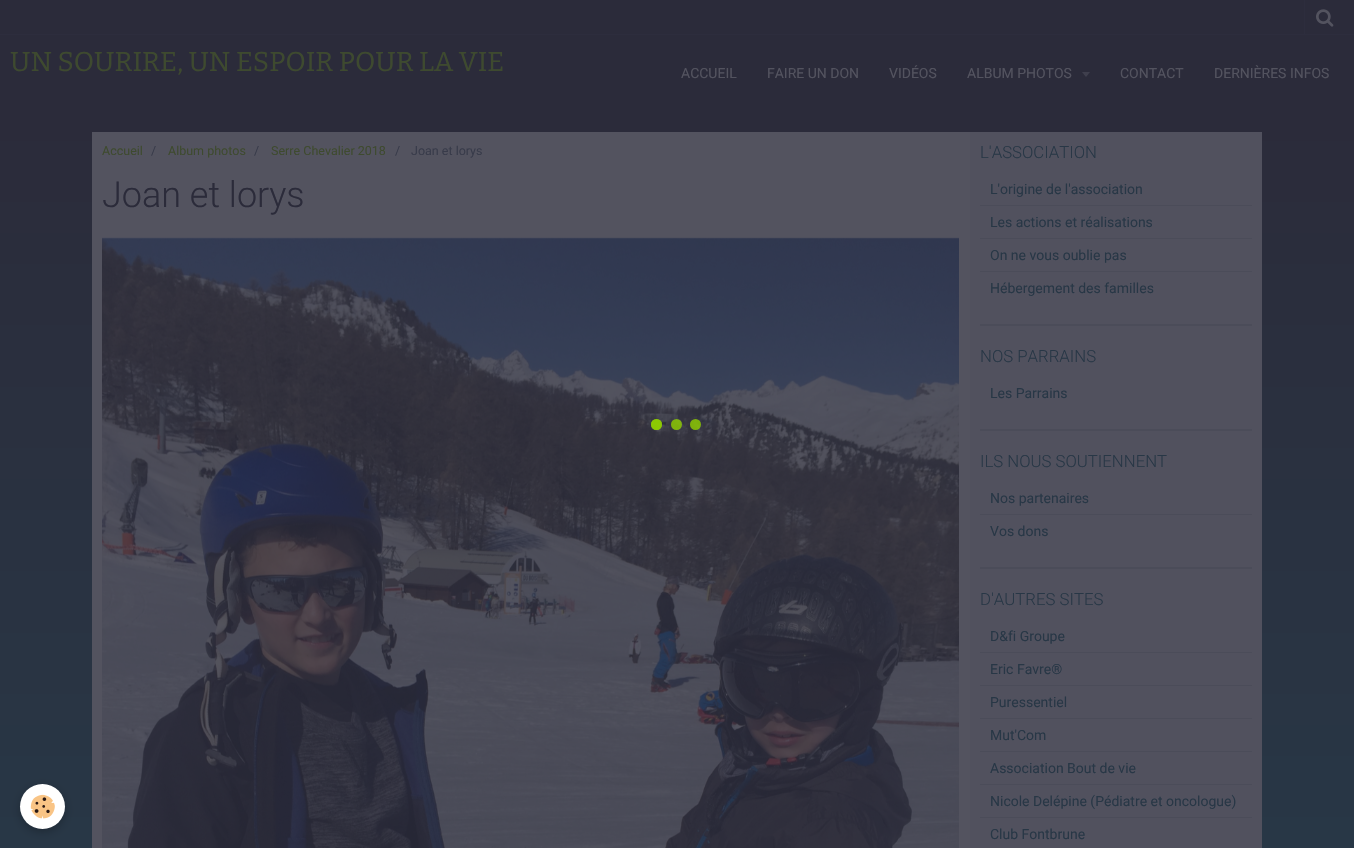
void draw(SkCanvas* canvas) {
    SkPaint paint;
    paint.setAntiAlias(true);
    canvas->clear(0xFFFFFFFF);
    {
        const SkColor colors[] = {0xFF2B2B3A, 0xFF2B2B3A, 0xFF283746};
        const float stops[] = {0, 0.13f, 1};
        const SkPoint ends[] = {{677, 0}, {677, 848}};
        paint.setShader(SkGradientShader::MakeLinear(ends, colors, stops, 3, SkTileMode::kClamp));
        paint.setAlpha(255);
    }
    canvas->drawRect(SkRect::MakeXYWH(0, 0, 1354, 848), paint);
    paint.setShader(nullptr);
    paint.setColor(0xFF2D2D3D);
    canvas->drawRect(SkRect::MakeXYWH(0, 34, 1354, 1), paint);
    canvas->drawRect(SkRect::MakeXYWH(1304, 0, 1, 34), paint);
    canvas->drawImageRect(SkImages::DeferredFromEncodedData(SkData::MakeFromFileName("img1.png")), SkRect::MakeXYWH(1316, 9, 18, 18), SkSamplingOptions());
    SkFont font1(fontMgr->matchFamilyStyle("Bitter", SkFontStyle::Normal()), 27.25f);
    font1.setSubpixel(true);
    paint.setColor(0xFF3E4A2F);
    canvas->drawString("UN SOURIRE, UN ESPOIR POUR LA VIE", 10, 71, font1, paint);
    SkFont font2(fontMgr->matchFamilyStyle("Roboto", SkFontStyle::Normal()), 14);
    font2.setSubpixel(true);
    paint.setColor(0xFF53535F);
    canvas->drawString("ACCUEIL", 681, 78, font2, paint);
    canvas->drawString("FAIRE UN DON", 767, 78, font2, paint);
    canvas->drawString("VIDÉOS", 889, 78, font2, paint);
    canvas->drawString("ALBUM PHOTOS", 967, 78, font2, paint);
    paint.setColor(0xFF3F3F4D);
    canvas->drawPath(SkPathBuilder().moveTo(1082, 72).lineTo(1090, 72).lineTo(1086, 77).close().detach(), paint);
    paint.setColor(0xFF53535F);
    canvas->drawString("CONTACT", 1120, 78, font2, paint);
    canvas->drawString("DERNIÈRES INFOS", 1214, 78, font2, paint);
    canvas->drawRect(SkRect::MakeXYWH(92, 132, 878, 716), paint);
    SkFont font3(fontMgr->matchFamilyStyle("Roboto", SkFontStyle::Normal()), 12.5f);
    font3.setSubpixel(true);
    paint.setColor(0xFF3E4A2F);
    canvas->drawString("Accueil", 102, 155, font3, paint);
    paint.setColor(0xFF383B4A);
    canvas->drawString("/", 151, 155, font3, paint);
    paint.setColor(0xFF3E4A2F);
    canvas->drawString("Album photos", 168, 155, font3, paint);
    paint.setColor(0xFF383B4A);
    canvas->drawString("/", 254, 155, font3, paint);
    paint.setColor(0xFF3E4A2F);
    canvas->drawString("Serre Chevalier 2018", 271, 155, font3, paint);
    paint.setColor(0xFF383B4A);
    canvas->drawString("/", 395, 155, font3, paint);
    canvas->drawString("Joan et lorys", 411, 155, font3, paint);
    SkFont font4(fontMgr->matchFamilyStyle("Roboto", SkFontStyle(300, SkFontStyle::kNormal_Width, SkFontStyle::kUpright_Slant)), 36);
    font4.setSubpixel(true);
    paint.setColor(0xFF2B2B3A);
    canvas->drawString("Joan et lorys", 102, 207, font4, paint);
    canvas->drawImageRect(SkImages::DeferredFromEncodedData(SkData::MakeFromFileName("img2.png")), SkRect::MakeXYWH(102, 237, 857, 611), SkSamplingOptions());
    paint.setColor(0xFF51515E);
    canvas->drawRect(SkRect::MakeXYWH(970, 132, 292, 716), paint);
    SkFont font5(fontMgr->matchFamilyStyle("Roboto", SkFontStyle(300, SkFontStyle::kNormal_Width, SkFontStyle::kUpright_Slant)), 16.75f);
    font5.setSubpixel(true);
    paint.setColor(0xFF283746);
    canvas->drawString("L'ASSOCIATION", 980, 158, font5, paint);
    paint.setColor(0xFF4B4C59);
    canvas->drawRect(SkRect::MakeXYWH(980, 205, 272, 1), paint);
    paint.setColor(0xFF283746);
    canvas->drawString("L'origine de l'association", 990, 194, font2, paint);
    paint.setColor(0xFF4B4C59);
    canvas->drawRect(SkRect::MakeXYWH(980, 238, 272, 1), paint);
    paint.setColor(0xFF283746);
    canvas->drawString("Les actions et réalisations", 990, 227, font2, paint);
    paint.setColor(0xFF4B4C59);
    canvas->drawRect(SkRect::MakeXYWH(980, 271, 272, 1), paint);
    paint.setColor(0xFF283746);
    canvas->drawString("On ne vous oublie pas", 990, 260, font2, paint);
    canvas->drawString("Hébergement des familles", 990, 293, font2, paint);
    paint.setColor(0xFF4B4C59);
    canvas->drawRect(SkRect::MakeXYWH(980, 324, 272, 2), paint);
    paint.setColor(0xFF283746);
    canvas->drawString("NOS PARRAINS", 980, 362, font5, paint);
    canvas->drawString("Les Parrains", 990, 398, font2, paint);
    paint.setColor(0xFF4B4C59);
    canvas->drawRect(SkRect::MakeXYWH(980, 429, 272, 2), paint);
    paint.setColor(0xFF283746);
    canvas->drawString("ILS NOUS SOUTIENNENT", 980, 467, font5, paint);
    paint.setColor(0xFF4B4C59);
    canvas->drawRect(SkRect::MakeXYWH(980, 514, 272, 1), paint);
    paint.setColor(0xFF283746);
    canvas->drawString("Nos partenaires", 990, 503, font2, paint);
    canvas->drawString("Vos dons", 990, 536, font2, paint);
    paint.setColor(0xFF4B4C59);
    canvas->drawRect(SkRect::MakeXYWH(980, 567, 272, 2), paint);
    paint.setColor(0xFF283746);
    canvas->drawString("D'AUTRES SITES", 980, 605, font5, paint);
    paint.setColor(0xFF4B4C59);
    canvas->drawRect(SkRect::MakeXYWH(980, 652, 272, 1), paint);
    paint.setColor(0xFF283746);
    canvas->drawString("D&fi Groupe", 990, 641, font2, paint);
    paint.setColor(0xFF4B4C59);
    canvas->drawRect(SkRect::MakeXYWH(980, 685, 272, 1), paint);
    paint.setColor(0xFF283746);
    canvas->drawString("Eric Favre®", 990, 674, font2, paint);
    paint.setColor(0xFF4B4C59);
    canvas->drawRect(SkRect::MakeXYWH(980, 718, 272, 1), paint);
    paint.setColor(0xFF283746);
    canvas->drawString("Puressentiel", 990, 707, font2, paint);
    paint.setColor(0xFF4B4C59);
    canvas->drawRect(SkRect::MakeXYWH(980, 751, 272, 1), paint);
    paint.setColor(0xFF283746);
    canvas->drawString("Mut'Com", 990, 740, font2, paint);
    paint.setColor(0xFF4B4C59);
    canvas->drawRect(SkRect::MakeXYWH(980, 784, 272, 1), paint);
    paint.setColor(0xFF283746);
    canvas->drawString("Association Bout de vie", 990, 773, font2, paint);
    paint.setColor(0xFF4B4C59);
    canvas->drawRect(SkRect::MakeXYWH(980, 817, 272, 1), paint);
    paint.setColor(0xFF283746);
    canvas->drawString("Nicole Delépine (Pédiatre et oncologue)", 990, 806, font2, paint);
    canvas->drawString("Club Fontbrune", 990, 839, font2, paint);
    paint.setColor(0xCF8FCE00);
    canvas->drawCircle(656.5f, 424.5f, 5.5f, paint);
    canvas->drawCircle(656.5f, 424.5f, 5.5f, paint);
    canvas->drawCircle(676.5f, 424.5f, 5.5f, paint);
    canvas->drawCircle(695.5f, 424.5f, 5.5f, paint);
    paint.setColor(0x3D000000);
    paint.setMaskFilter(SkMaskFilter::MakeBlur(kNormal_SkBlurStyle, 5));
    canvas->drawRoundRect(SkRect::MakeXYWH(20, 787, 45, 45), 22.5f, 22.5f, paint);
    paint.setMaskFilter(nullptr);
    paint.setColor(0xFFFFFFFF);
    canvas->drawCircle(42.5f, 806.5f, 22.5f, paint);
    canvas->drawImageRect(SkImages::DeferredFromEncodedData(SkData::MakeFromFileName("img3.png")), SkRect::MakeXYWH(30, 794, 25, 25), SkSamplingOptions());
}
